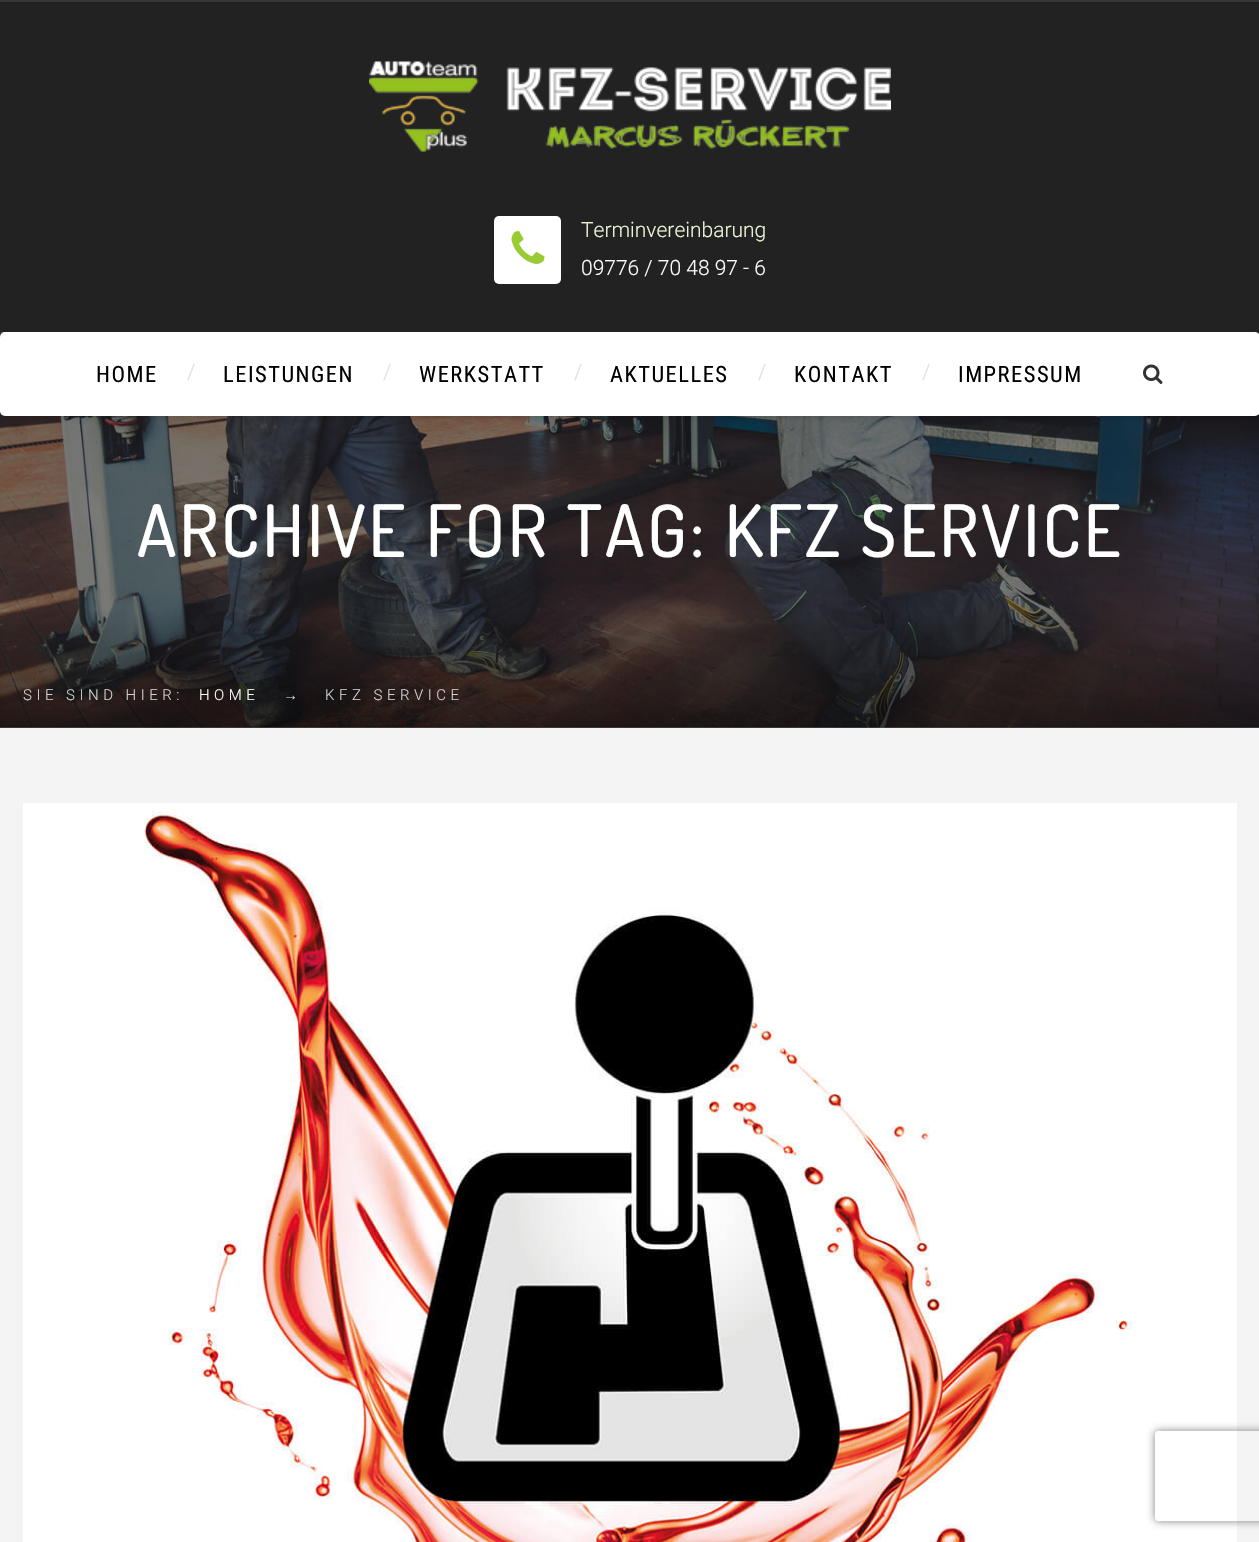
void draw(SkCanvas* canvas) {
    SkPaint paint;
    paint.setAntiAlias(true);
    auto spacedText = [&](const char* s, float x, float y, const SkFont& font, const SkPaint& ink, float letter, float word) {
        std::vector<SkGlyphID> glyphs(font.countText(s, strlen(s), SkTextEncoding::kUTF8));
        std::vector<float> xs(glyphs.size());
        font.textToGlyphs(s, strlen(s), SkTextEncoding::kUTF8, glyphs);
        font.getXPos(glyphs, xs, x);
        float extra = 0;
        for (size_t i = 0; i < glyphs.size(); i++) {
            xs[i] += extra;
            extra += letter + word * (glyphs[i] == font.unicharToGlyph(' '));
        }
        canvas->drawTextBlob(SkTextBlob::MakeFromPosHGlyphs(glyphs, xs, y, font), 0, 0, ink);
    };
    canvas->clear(0xFFF4F4F4);
    paint.setColor(0xFF222222);
    canvas->drawRect(SkRect::MakeXYWH(0, 2, 1259, 330), paint);
    paint.setColor(0xFF383838);
    canvas->drawRect(SkRect::MakeXYWH(0, 0, 1259, 2), paint);
    canvas->drawImageRect(SkImages::DeferredFromEncodedData(SkData::MakeFromFileName("img1.png")), SkRect::MakeXYWH(369, 61, 522, 91), SkSamplingOptions());
    paint.setColor(0xFFFFFFFF);
    canvas->drawRoundRect(SkRect::MakeXYWH(494, 216, 67, 68), 5, 5, paint);
    canvas->drawImageRect(SkImages::DeferredFromEncodedData(SkData::MakeFromFileName("img2.png")), SkRect::MakeXYWH(511, 231, 34, 33), SkSamplingOptions());
    SkFont font1(fontMgr->matchFamilyStyle("Roboto", SkFontStyle(300, SkFontStyle::kNormal_Width, SkFontStyle::kUpright_Slant)), 21);
    font1.setSubpixel(true);
    paint.setColor(0xFFEBF5D7);
    canvas->drawString("Terminvereinbarung", 581, 237, font1, paint);
    paint.setColor(0xFFFFFFFF);
    canvas->drawString("09776 / 70 48 97 - 6", 581, 275, font1, paint);
    paint.setColor(0xFFCCCCCC);
    canvas->drawRect(SkRect::MakeXYWH(0, 727, 1259, 1), paint);
    canvas->drawImageRect(SkImages::DeferredFromEncodedData(SkData::MakeFromFileName("img4.png")), SkRect::MakeXYWH(0, 332, 1259, 396), SkSamplingOptions());
    paint.setColor(0x1F000000);
    paint.setMaskFilter(SkMaskFilter::MakeBlur(kNormal_SkBlurStyle, 2));
    canvas->drawRoundRect(SkRect::MakeXYWH(0, 335, 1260, 84), 5, 5, paint);
    paint.setMaskFilter(nullptr);
    paint.setColor(0xFFFFFFFF);
    canvas->drawRoundRect(SkRect::MakeXYWH(0, 332, 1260, 84), 5, 5, paint);
    SkFont font2(fontMgr->matchFamilyStyle("Roboto Condensed", SkFontStyle::Normal()), 22.5f);
    font2.setSubpixel(true);
    paint.setColor(0xFF000000);
    spacedText("HOME", 96, 382, font2, paint, 1.5f, 0);
    paint.setColor(0xFFE0E0E0);
    canvas->drawString("/", 187, 379, font1, paint);
    paint.setColor(0xFF000000);
    spacedText("LEISTUNGEN", 223, 382, font2, paint, 1.5f, 0);
    paint.setColor(0xFFE0E0E0);
    canvas->drawString("/", 383, 379, font1, paint);
    paint.setColor(0xFF000000);
    spacedText("WERKSTATT", 419, 382, font2, paint, 1.5f, 0);
    paint.setColor(0xFFE0E0E0);
    canvas->drawString("/", 574, 379, font1, paint);
    paint.setColor(0xFF000000);
    spacedText("AKTUELLES", 610, 382, font2, paint, 1.5f, 0);
    paint.setColor(0xFFE0E0E0);
    canvas->drawString("/", 758, 379, font1, paint);
    paint.setColor(0xFF000000);
    spacedText("KONTAKT", 794, 382, font2, paint, 1.5f, 0);
    paint.setColor(0xFFE0E0E0);
    canvas->drawString("/", 922, 379, font1, paint);
    paint.setColor(0xFF000000);
    spacedText("IMPRESSUM", 958, 382, font2, paint, 1.5f, 0);
    canvas->drawImageRect(SkImages::DeferredFromEncodedData(SkData::MakeFromFileName("img3.png")), SkRect::MakeXYWH(1143, 364, 20, 20), SkSamplingOptions());
    paint.setColor(0x1A000000);
    canvas->drawRect(SkRect::MakeXYWH(0, 726, 1259, 2), paint);
    SkFont font3(fontMgr->matchFamilyStyle("Dosis", SkFontStyle(500, SkFontStyle::kNormal_Width, SkFontStyle::kUpright_Slant)), 72);
    font3.setSubpixel(true);
    paint.setColor(0xFFFFFFFF);
    spacedText("ARCHIVE FOR TAG: KFZ SERVICE", 137, 557, font3, paint, 2.9f, 0);
    {
        const SkColor colors[] = {0x00000000, 0x80000000};
        const float stops[] = {0, 1};
        const SkPoint ends[] = {{630, 607}, {630, 728}};
        paint.setShader(SkGradientShader::MakeLinear(ends, colors, stops, 2, SkTileMode::kClamp));
        paint.setAlpha(255);
    }
    canvas->drawRect(SkRect::MakeXYWH(0, 612, 1259, 116), paint);
    SkFont font4(fontMgr->matchFamilyStyle("Roboto", SkFontStyle(300, SkFontStyle::kNormal_Width, SkFontStyle::kUpright_Slant)), 15);
    font4.setSubpixel(true);
    paint.setShader(nullptr);
    paint.setColor(0xFFD3D1D1);
    spacedText("SIE SIND HIER:", 23, 700, font4, paint, 4.5f, 0);
    paint.setColor(0xFFFFFFFF);
    spacedText("HOME", 199, 700, font4, paint, 4.5f, 0);
    SkFont font5(fontMgr->matchFamilyStyle("Liberation Serif", SkFontStyle::Normal()), 15);
    font5.setSubpixel(true);
    paint.setColor(0xFFD3D1D1);
    spacedText("→", 283, 700, font5, paint, 4.5f, 0);
    spacedText("KFZ SERVICE", 325, 700, font4, paint, 4.5f, 0);
    canvas->drawImageRect(SkImages::DeferredFromEncodedData(SkData::MakeFromFileName("img5.png")), SkRect::MakeXYWH(23, 803, 1214, 739), SkSamplingOptions());
    canvas->save();
    canvas->clipPath(SkPathBuilder(SkPathFillType::kEvenOdd).moveTo(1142, 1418).lineTo(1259, 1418).lineTo(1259, 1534).lineTo(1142, 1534).close().moveTo(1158, 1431).lineTo(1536, 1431).cubicTo(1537.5f, 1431, 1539, 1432.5f, 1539, 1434).lineTo(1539, 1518).cubicTo(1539, 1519.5f, 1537.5f, 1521, 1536, 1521).lineTo(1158, 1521).cubicTo(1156.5f, 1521, 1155, 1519.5f, 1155, 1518).lineTo(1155, 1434).cubicTo(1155, 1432.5f, 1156.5f, 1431, 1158, 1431).close().detach(), true);
    paint.setColor(0xFF808080);
    paint.setMaskFilter(SkMaskFilter::MakeBlur(kNormal_SkBlurStyle, 4));
    canvas->drawRoundRect(SkRect::MakeXYWH(1155, 1431, 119, 90), 3, 3, paint);
    paint.setMaskFilter(nullptr);
    canvas->restore();
}
